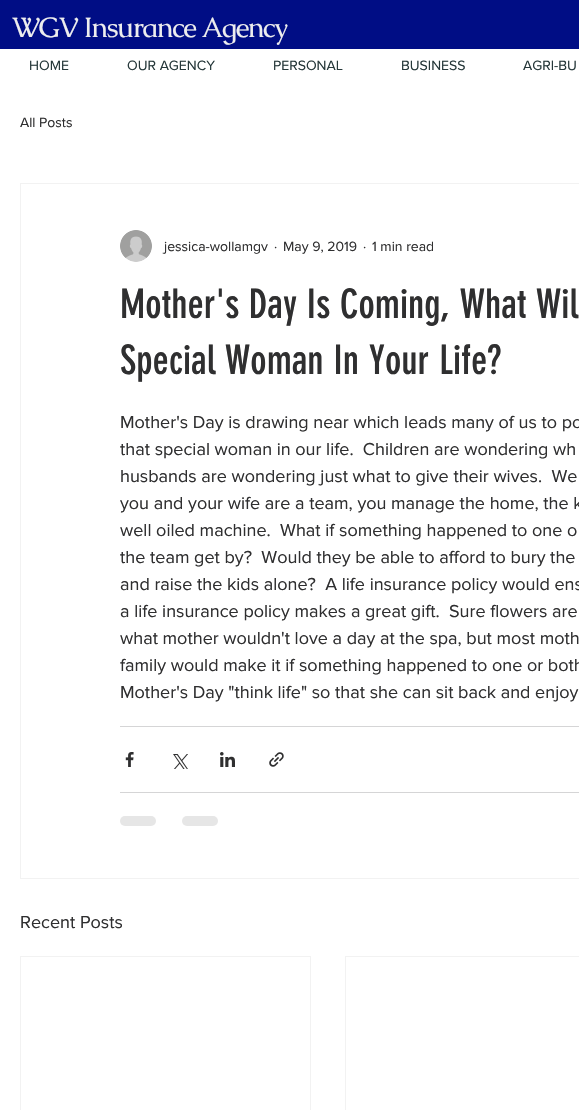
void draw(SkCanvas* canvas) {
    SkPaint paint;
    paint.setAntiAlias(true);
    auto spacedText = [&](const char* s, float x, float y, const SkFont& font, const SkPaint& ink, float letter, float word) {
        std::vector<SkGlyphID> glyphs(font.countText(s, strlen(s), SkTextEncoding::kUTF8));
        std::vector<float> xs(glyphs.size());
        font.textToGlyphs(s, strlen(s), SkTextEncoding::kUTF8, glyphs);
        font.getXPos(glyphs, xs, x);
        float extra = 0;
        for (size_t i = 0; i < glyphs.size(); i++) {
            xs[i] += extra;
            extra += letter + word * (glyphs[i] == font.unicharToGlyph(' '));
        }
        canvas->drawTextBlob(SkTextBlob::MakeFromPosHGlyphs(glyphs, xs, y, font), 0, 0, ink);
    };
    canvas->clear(0xFFFFFFFF);
    paint.setColor(0xFF000D85);
    canvas->drawRect(SkRect::MakeXYWH(0, 0, 579, 49), paint);
    SkFont font1(fontMgr->matchFamilyStyle("Caudex", SkFontStyle::Normal()), 28);
    font1.setSubpixel(true);
    paint.setColor(0xFFEDEDEE);
    spacedText("WGV Insurance Agency", 12, 37, font1, paint, -1.4f, 0);
    SkFont font2(fontMgr->matchFamilyStyle("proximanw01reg", SkFontStyle::Normal()), 14);
    font2.setSubpixel(true);
    paint.setColor(0xFF26383A);
    canvas->drawString("HOME", 29, 70, font2, paint);
    canvas->drawString("OUR AGENCY", 127, 70, font2, paint);
    canvas->drawString("PERSONAL", 273, 70, font2, paint);
    canvas->drawString("BUSINESS", 401, 70, font2, paint);
    canvas->drawString("AGRI-BU", 523, 70, font2, paint);
    paint.setColor(0xFF2F2F30);
    canvas->drawString("All Posts", 20, 127, font2, paint);
    paint.setStyle(SkPaint::kStroke_Style);
    paint.setStrokeWidth(1);
    paint.setColor(0xFFF2F2F2);
    canvas->drawRect(SkRect::MakeXYWH(20.5f, 183.5f, 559, 695), paint);
    canvas->drawImageRect(SkImages::DeferredFromEncodedData(SkData::MakeFromFileName("img1.png")), SkRect::MakeXYWH(120, 230, 32, 32), SkSamplingOptions());
    paint.setStyle(SkPaint::kFill_Style);
    paint.setColor(0xFF2F2F30);
    canvas->drawString("jessica-wollamgv", 164, 251, font2, paint);
    canvas->drawString("·", 274, 251, font2, paint);
    canvas->drawString("May 9, 2019", 283, 251, font2, paint);
    canvas->drawString("·", 363, 251, font2, paint);
    canvas->drawString("1 min read", 372, 251, font2, paint);
    SkFont font3(fontMgr->matchFamilyStyle("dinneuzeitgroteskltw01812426", SkFontStyle::Normal()), 40);
    font3.setSubpixel(true);
    canvas->drawString("Mother's Day Is Coming, What Wil", 120, 318, font3, paint);
    canvas->drawString("Special Woman In Your Life?", 120, 374, font3, paint);
    SkFont font4(fontMgr->matchFamilyStyle("proximanw01reg", SkFontStyle::Normal()), 18);
    font4.setSubpixel(true);
    canvas->drawString("Mother's Day is drawing near which leads many of us to po", 120, 428, font4, paint);
    canvas->drawString("that special woman in our life.  Children are wondering wh", 120, 455, font4, paint);
    canvas->drawString("husbands are wondering just what to give their wives.  We", 120, 482, font4, paint);
    canvas->drawString("you and your wife are a team, you manage the home, the k", 120, 509, font4, paint);
    canvas->drawString("well oiled machine.  What if something happened to one o", 120, 536, font4, paint);
    canvas->drawString("the team get by?  Would they be able to afford to bury the", 120, 563, font4, paint);
    canvas->drawString("and raise the kids alone?  A life insurance policy would ens", 120, 590, font4, paint);
    canvas->drawString("a life insurance policy makes a great gift.  Sure flowers are", 120, 617, font4, paint);
    canvas->drawString("what mother wouldn't love a day at the spa, but most moth", 120, 644, font4, paint);
    canvas->drawString("family would make it if something happened to one or both", 120, 671, font4, paint);
    canvas->drawString("Mother's Day \"think life\" so that she can sit back and enjoy", 120, 698, font4, paint);
    paint.setColor(0xFFD5D5D6);
    canvas->drawRect(SkRect::MakeXYWH(120, 726, 459, 1), paint);
    canvas->drawImageRect(SkImages::DeferredFromEncodedData(SkData::MakeFromFileName("img2.png")), SkRect::MakeXYWH(125, 752, 9, 15), SkSamplingOptions());
    canvas->drawImageRect(SkImages::DeferredFromEncodedData(SkData::MakeFromFileName("img3.png")), SkRect::MakeXYWH(173, 754, 15, 15), SkSamplingOptions());
    canvas->drawImageRect(SkImages::DeferredFromEncodedData(SkData::MakeFromFileName("img4.png")), SkRect::MakeXYWH(220, 752, 15, 15), SkSamplingOptions());
    canvas->drawImageRect(SkImages::DeferredFromEncodedData(SkData::MakeFromFileName("img5.png")), SkRect::MakeXYWH(269, 752, 15, 15), SkSamplingOptions());
    canvas->drawRect(SkRect::MakeXYWH(120, 792, 459, 1), paint);
    paint.setColor(0xFFE6E6E6);
    canvas->drawRoundRect(SkRect::MakeXYWH(120, 816, 36, 10), 5, 5, paint);
    canvas->drawRoundRect(SkRect::MakeXYWH(182, 816, 36, 10), 5, 5, paint);
    paint.setColor(0xFF2F2F30);
    canvas->drawString("Recent Posts", 20, 928, font4, paint);
    paint.setStyle(SkPaint::kStroke_Style);
    paint.setColor(0xFFF2F2F2);
    canvas->drawRect(SkRect::MakeXYWH(20.5f, 956.5f, 290, 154), paint);
    canvas->drawRect(SkRect::MakeXYWH(345.5f, 956.5f, 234, 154), paint);
}
